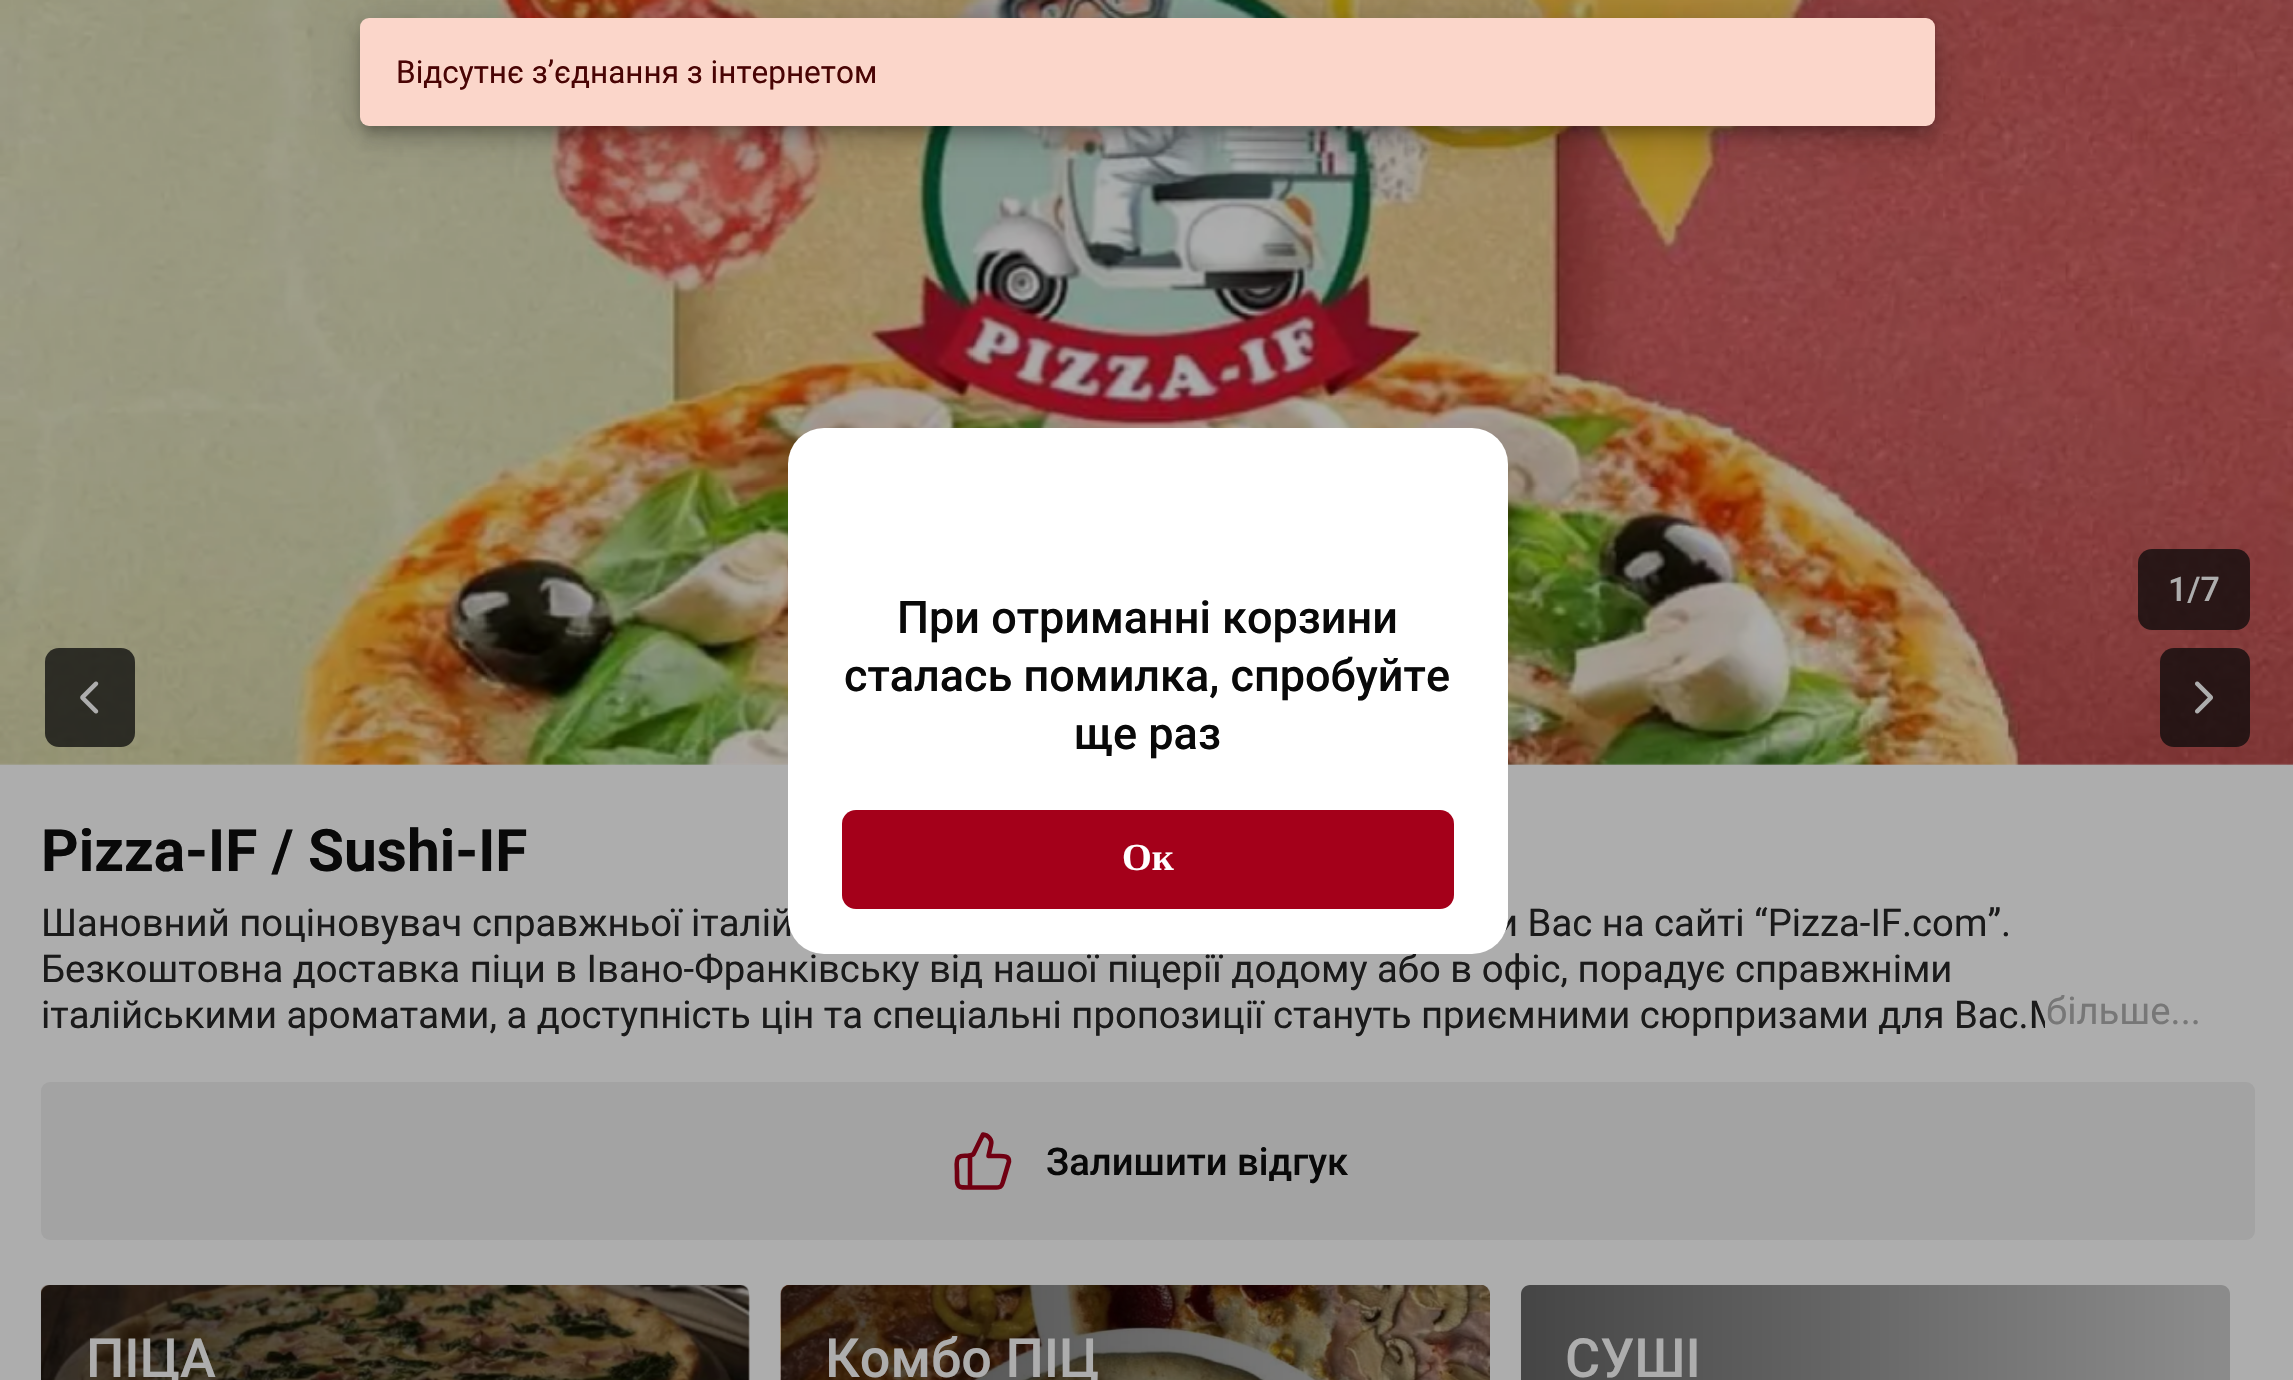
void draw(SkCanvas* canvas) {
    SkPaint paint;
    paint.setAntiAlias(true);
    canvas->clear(0xFFADADAD);
    canvas->drawImageRect(SkImages::DeferredFromEncodedData(SkData::MakeFromFileName("img1.png")), SkRect::MakeXYWH(0, 0, 2293, 765), SkSamplingOptions());
    paint.setColor(0x1F000000);
    paint.setMaskFilter(SkMaskFilter::MakeBlur(kNormal_SkBlurStyle, 20));
    canvas->drawRoundRect(SkRect::MakeXYWH(360, 20, 1575, 108), 9, 9, paint);
    paint.setMaskFilter(nullptr);
    paint.setColor(0x24000000);
    paint.setMaskFilter(SkMaskFilter::MakeBlur(kNormal_SkBlurStyle, 11));
    canvas->drawRoundRect(SkRect::MakeXYWH(360, 32, 1575, 108), 9, 9, paint);
    paint.setMaskFilter(nullptr);
    paint.setColor(0x33000000);
    paint.setMaskFilter(SkMaskFilter::MakeBlur(kNormal_SkBlurStyle, 5.5f));
    canvas->drawRoundRect(SkRect::MakeXYWH(362, 27, 1571, 104), 7, 7, paint);
    paint.setMaskFilter(nullptr);
    paint.setColor(0xFFFBD6CA);
    canvas->drawRoundRect(SkRect::MakeXYWH(360, 18, 1575, 108), 9, 9, paint);
    SkFont font1(fontMgr->matchFamilyStyle("Roboto", SkFontStyle::Normal()), 31.5f);
    font1.setSubpixel(true);
    paint.setColor(0xFF490404);
    canvas->drawString("Відсутнє з’єднання з інтернетом", 396, 83, font1, paint);
    paint.setColor(0xBF090909);
    canvas->drawRoundRect(SkRect::MakeXYWH(2138, 549, 112, 81), 14, 14, paint);
    SkFont font2(fontMgr->matchFamilyStyle("Roboto", SkFontStyle(500, SkFontStyle::kNormal_Width, SkFontStyle::kUpright_Slant)), 34);
    font2.setSubpixel(true);
    paint.setColor(0xFFADADAD);
    canvas->drawString("1/7", 2168, 601, font2, paint);
    paint.setColor(0xBF090909);
    canvas->drawRoundRect(SkRect::MakeXYWH(45, 648, 90, 99), 14, 14, paint);
    canvas->drawImageRect(SkImages::DeferredFromEncodedData(SkData::MakeFromFileName("img2.png")), SkRect::MakeXYWH(80, 681, 19, 33), SkSamplingOptions());
    canvas->drawRoundRect(SkRect::MakeXYWH(2160, 648, 90, 99), 14, 14, paint);
    canvas->drawImageRect(SkImages::DeferredFromEncodedData(SkData::MakeFromFileName("img3.png")), SkRect::MakeXYWH(2195, 681, 18, 33), SkSamplingOptions());
    SkFont font3(fontMgr->matchFamilyStyle("Roboto", SkFontStyle::Bold()), 58.5f);
    font3.setSubpixel(true);
    paint.setColor(0xFF090909);
    canvas->drawString("Pizza-IF / Sushi-IF", 41, 871, font3, paint);
    SkFont font4(fontMgr->matchFamilyStyle("Roboto", SkFontStyle::Normal()), 38.25f);
    font4.setSubpixel(true);
    paint.setColor(0xFF1A1A1A);
    canvas->drawString("Шановний поціновувач справжньої італій", 41, 936, font4, paint);
    canvas->drawString("и Вас на сайті “Pizza-IF.com”.", 1496, 936, font4, paint);
    canvas->drawString("Безкоштовна доставка піци в Івано-Франківську від нашої піцерії додому або в офіс, порадує справжніми", 41, 982, font4, paint);
    canvas->drawString("італійськими ароматами, а доступність цін та спеціальні пропозиції стануть приємними сюрпризами для Вас.М", 41, 1028, font4, paint);
    paint.setColor(0xFFADADAD);
    canvas->drawRect(SkRect::MakeXYWH(2045, 1000, 14, 28), paint);
    paint.setColor(0xFF777777);
    canvas->drawString("більше...", 2046, 1024, font4, paint);
    paint.setColor(0xFFA3A3A3);
    canvas->drawRoundRect(SkRect::MakeXYWH(41, 1082, 2214, 158), 9, 9, paint);
    paint.setStyle(SkPaint::kStroke_Style);
    paint.setStrokeWidth(4.6f);
    paint.setStrokeCap(SkPaint::kRound_Cap);
    paint.setStrokeJoin(SkPaint::kRound_Join);
    paint.setColor(0xFF700012);
    canvas->drawPath(SkPathBuilder().moveTo(970, 1156).lineTo(970, 1187.5f).moveTo(991, 1145).lineTo(988.5f, 1156).lineTo(998.5f, 1156).cubicTo(1002.5f, 1156, 1009.5f, 1155.5f, 1009, 1161.5f).lineTo(1003.5f, 1180).cubicTo(1001.5f, 1188, 1000.5f, 1187.5f, 992, 1187.5f).lineTo(974, 1187.5f).cubicTo(956, 1187.5f, 957, 1189, 957, 1171.5f).cubicTo(957, 1168, 955.5f, 1160, 958.5f, 1157.5f).cubicTo(962.5f, 1153.5f, 969.5f, 1158, 973.5f, 1154).lineTo(983, 1134.5f).cubicTo(988.5f, 1135, 992.5f, 1140, 991, 1145).close().detach(), paint);
    SkFont font5(fontMgr->matchFamilyStyle("Roboto", SkFontStyle(500, SkFontStyle::kNormal_Width, SkFontStyle::kUpright_Slant)), 38.25f);
    font5.setSubpixel(true);
    paint.setStyle(SkPaint::kFill_Style);
    paint.setColor(0xFF090909);
    canvas->drawString("Залишити відгук", 1046, 1175, font5, paint);
    canvas->drawImageRect(SkImages::DeferredFromEncodedData(SkData::MakeFromFileName("img4.png")), SkRect::MakeXYWH(41, 1285, 709, 95), SkSamplingOptions());
    {
        const SkColor colors[] = {0x99000000, 0x33000000};
        const float stops[] = {0, 0.97f};
        const SkPoint ends[] = {{41, 1359}, {749, 1359}};
        paint.setShader(SkGradientShader::MakeLinear(ends, colors, stops, 2, SkTileMode::kClamp));
        paint.setAlpha(255);
    }
    canvas->drawPath(SkPathBuilder().moveTo(50, 1285).lineTo(740, 1285).cubicTo(745, 1285, 749, 1289, 749, 1294).lineTo(749, 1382).lineTo(41, 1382).lineTo(41, 1294).cubicTo(41, 1289, 45, 1285, 50, 1285).close().detach(), paint);
    SkFont font6(fontMgr->matchFamilyStyle("Roboto", SkFontStyle(500, SkFontStyle::kNormal_Width, SkFontStyle::kUpright_Slant)), 54);
    font6.setSubpixel(true);
    paint.setShader(nullptr);
    paint.setColor(0xFFADADAD);
    canvas->drawString("ПІЦА", 86, 1377, font6, paint);
    canvas->drawImageRect(SkImages::DeferredFromEncodedData(SkData::MakeFromFileName("img5.png")), SkRect::MakeXYWH(780, 1285, 710, 95), SkSamplingOptions());
    canvas->drawImageRect(SkImages::DeferredFromEncodedData(SkData::MakeFromFileName("img6.png")), SkRect::MakeXYWH(780, 1285, 710, 95), SkSamplingOptions());
    {
        const SkColor colors[] = {0x99000000, 0x33000000};
        const float stops[] = {0, 0.97f};
        const SkPoint ends[] = {{781, 1359}, {1490, 1359}};
        paint.setShader(SkGradientShader::MakeLinear(ends, colors, stops, 2, SkTileMode::kClamp));
        paint.setAlpha(255);
    }
    canvas->drawPath(SkPathBuilder().moveTo(790, 1285).lineTo(1481, 1285).cubicTo(1486, 1285, 1490, 1289, 1490, 1294).lineTo(1490, 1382).lineTo(781, 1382).lineTo(781, 1294).cubicTo(781, 1289, 785, 1285, 790, 1285).close().detach(), paint);
    paint.setShader(nullptr);
    paint.setColor(0xFFADADAD);
    canvas->drawString("Комбо ПІЦ", 825, 1377, font6, paint);
    {
        const SkColor colors[] = {0xFF454545, 0xFF8B8B8B};
        const float stops[] = {0, 0.97f};
        const SkPoint ends[] = {{1521, 1359}, {2230, 1359}};
        paint.setShader(SkGradientShader::MakeLinear(ends, colors, stops, 2, SkTileMode::kClamp));
        paint.setAlpha(255);
    }
    canvas->drawPath(SkPathBuilder().moveTo(1530, 1285).lineTo(2221, 1285).cubicTo(2226, 1285, 2230, 1289, 2230, 1294).lineTo(2230, 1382).lineTo(1521, 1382).lineTo(1521, 1294).cubicTo(1521, 1289, 1525, 1285, 1530, 1285).close().detach(), paint);
    paint.setShader(nullptr);
    paint.setColor(0xFFADADAD);
    canvas->drawString("СУШІ", 1565, 1377, font6, paint);
    paint.setColor(0xFFFFFFFF);
    canvas->drawRoundRect(SkRect::MakeXYWH(788, 428, 720, 526), 36, 36, paint);
    SkFont font7(fontMgr->matchFamilyStyle("Roboto", SkFontStyle(500, SkFontStyle::kNormal_Width, SkFontStyle::kUpright_Slant)), 45);
    font7.setSubpixel(true);
    paint.setColor(0xFF090909);
    canvas->drawString("При отриманні корзини", 897, 633, font7, paint);
    canvas->drawString("сталась помилка, спробуйте", 844, 691, font7, paint);
    canvas->drawString("ще раз", 1074, 749, font7, paint);
    paint.setColor(0xFFA4001A);
    canvas->drawRoundRect(SkRect::MakeXYWH(842, 810, 612, 99), 14, 14, paint);
    SkFont font8(fontMgr->matchFamilyStyle("Liberation Serif", SkFontStyle::Bold()), 38.25f);
    font8.setSubpixel(true);
    paint.setColor(0xFFFFFFFF);
    canvas->drawString("Ок", 1122, 870, font8, paint);
}
